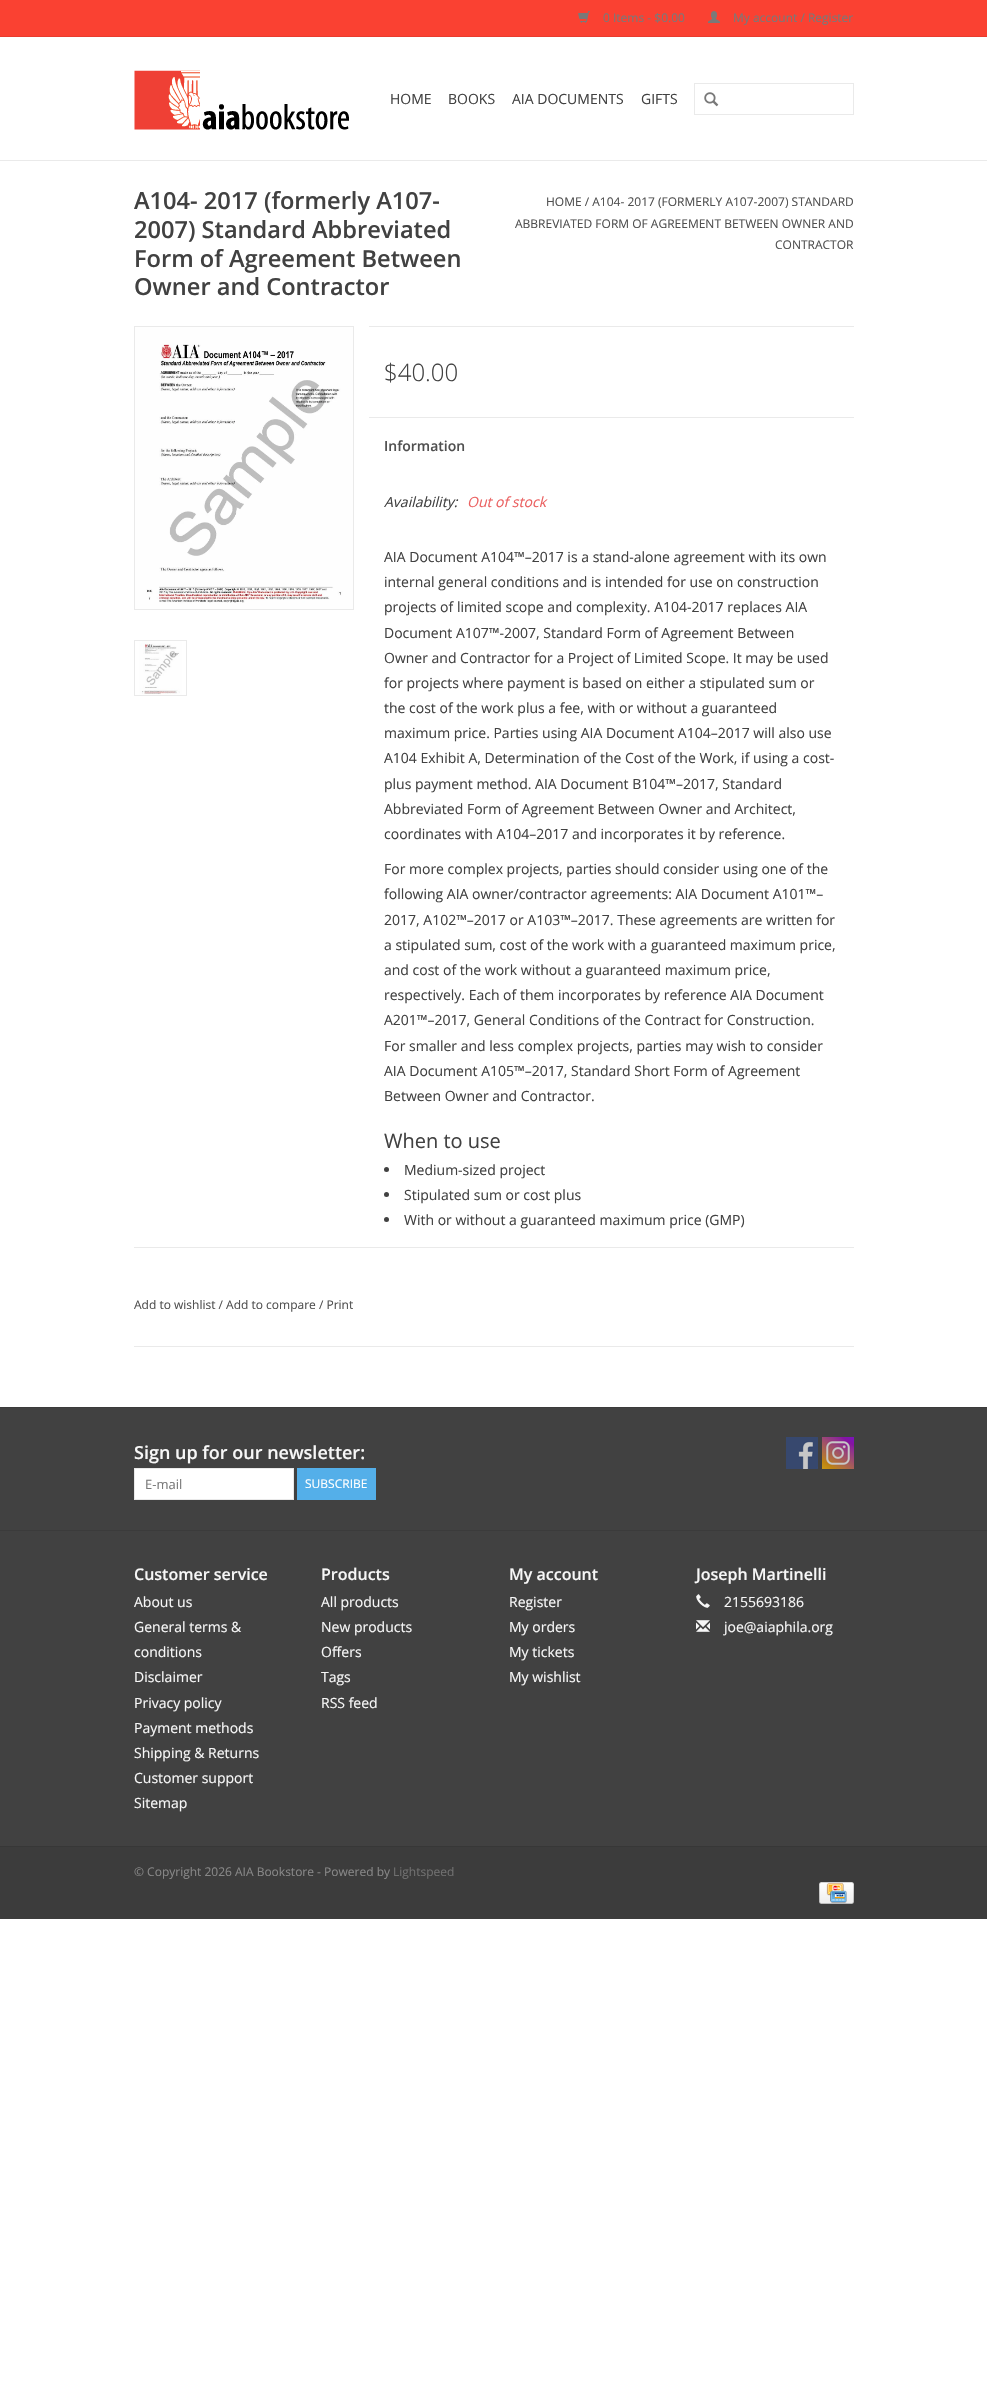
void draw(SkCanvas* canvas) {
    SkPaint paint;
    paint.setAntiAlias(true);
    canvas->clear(0xFFFFFFFF);
    paint.setColor(0xFFEAEAEA);
    canvas->drawRect(SkRect::MakeXYWH(0, 160, 987, 1), paint);
    paint.setColor(0xFFFA4132);
    canvas->drawRect(SkRect::MakeXYWH(0, 0, 987, 36), paint);
    paint.setColor(0xFFE83C2E);
    canvas->drawRect(SkRect::MakeXYWH(0, 36, 987, 1), paint);
    canvas->drawImageRect(SkImages::DeferredFromEncodedData(SkData::MakeFromFileName("img1.png")), SkRect::MakeXYWH(578, 11, 12, 12), SkSamplingOptions());
    SkFont font1(fontMgr->matchFamilyStyle("Open Sans", SkFontStyle::Normal()), 12);
    font1.setSubpixel(true);
    paint.setColor(0xFF797979);
    canvas->drawString("0 Items - $0.00", 603, 22, font1, paint);
    canvas->drawImageRect(SkImages::DeferredFromEncodedData(SkData::MakeFromFileName("img2.png")), SkRect::MakeXYWH(708, 11, 12, 12), SkSamplingOptions());
    canvas->drawString("My account / Register", 733, 22, font1, paint);
    canvas->drawImageRect(SkImages::DeferredFromEncodedData(SkData::MakeFromFileName("img3.png")), SkRect::MakeXYWH(134, 70, 215, 60), SkSamplingOptions());
    SkFont font2(fontMgr->matchFamilyStyle("Open Sans", SkFontStyle::Normal()), 14);
    font2.setSubpixel(true);
    paint.setColor(0xFF414141);
    canvas->drawString("HOME", 390, 104, font2, paint);
    canvas->drawString("BOOKS", 448, 104, font2, paint);
    canvas->drawString("AIA DOCUMENTS", 512, 104, font2, paint);
    canvas->drawString("GIFTS", 641, 104, font2, paint);
    paint.setStyle(SkPaint::kStroke_Style);
    paint.setStrokeWidth(1);
    paint.setColor(0xFFEAEAEA);
    canvas->drawRect(SkRect::MakeXYWH(694.5f, 83.5f, 159, 31), paint);
    canvas->drawImageRect(SkImages::DeferredFromEncodedData(SkData::MakeFromFileName("img4.png")), SkRect::MakeXYWH(704, 92, 15, 15), SkSamplingOptions());
    SkFont font3(fontMgr->matchFamilyStyle("Open Sans", SkFontStyle(600, SkFontStyle::kNormal_Width, SkFontStyle::kUpright_Slant)), 23.6f);
    font3.setSubpixel(true);
    paint.setStyle(SkPaint::kFill_Style);
    paint.setColor(0xFF414141);
    canvas->drawString("A104- 2017 (formerly A107-", 134, 209, font3, paint);
    canvas->drawString("2007) Standard Abbreviated", 134, 238, font3, paint);
    canvas->drawString("Form of Agreement Between", 134, 267, font3, paint);
    canvas->drawString("Owner and Contractor", 134, 295, font3, paint);
    paint.setColor(0xFF505050);
    canvas->drawString("HOME / A104- 2017 (FORMERLY A107-2007) STANDARD", 546, 206, font1, paint);
    canvas->drawString("ABBREVIATED FORM OF AGREEMENT BETWEEN OWNER AND", 515, 228, font1, paint);
    canvas->drawString("CONTRACTOR", 775, 249, font1, paint);
    paint.setStyle(SkPaint::kStroke_Style);
    paint.setColor(0xFFEAEAEA);
    canvas->drawRect(SkRect::MakeXYWH(134.5f, 326.5f, 219, 283), paint);
    canvas->drawImageRect(SkImages::DeferredFromEncodedData(SkData::MakeFromFileName("img5.png")), SkRect::MakeXYWH(135, 327, 218, 282), SkSamplingOptions());
    canvas->drawRect(SkRect::MakeXYWH(134.5f, 640.5f, 52, 55), paint);
    canvas->drawImageRect(SkImages::DeferredFromEncodedData(SkData::MakeFromFileName("img6.png")), SkRect::MakeXYWH(135, 641, 51, 54), SkSamplingOptions());
    paint.setStyle(SkPaint::kFill_Style);
    canvas->drawRect(SkRect::MakeXYWH(369, 326, 485, 1), paint);
    SkFont font4(fontMgr->matchFamilyStyle("Open Sans", SkFontStyle(300, SkFontStyle::kNormal_Width, SkFontStyle::kUpright_Slant)), 24);
    font4.setSubpixel(true);
    paint.setColor(0xFF414141);
    canvas->drawString("$40.00", 384, 381, font4, paint);
    paint.setColor(0xFFEAEAEA);
    canvas->drawRect(SkRect::MakeXYWH(369, 417, 485, 1), paint);
    SkFont font5(fontMgr->matchFamilyStyle("Open Sans", SkFontStyle(600, SkFontStyle::kNormal_Width, SkFontStyle::kUpright_Slant)), 14);
    font5.setSubpixel(true);
    paint.setColor(0xFF505050);
    canvas->drawString("Information", 384, 451, font5, paint);
    SkFont font6(fontMgr->matchFamilyStyle("Open Sans", SkFontStyle::Italic()), 14);
    font6.setSubpixel(true);
    paint.setColor(0xFF414141);
    canvas->drawString("Availability:", 384, 507, font6, paint);
    paint.setColor(0xFFEB6161);
    canvas->drawString("Out of stock", 467, 507, font6, paint);
    paint.setColor(0xFF414141);
    canvas->drawString("AIA Document A104™–2017 is a stand-alone agreement with its own", 384, 562, font2, paint);
    canvas->drawString("internal general conditions and is intended for use on construction", 384, 587, font2, paint);
    canvas->drawString("projects of limited scope and complexity. A104-2017 replaces AIA", 384, 612, font2, paint);
    canvas->drawString("Document A107™-2007, Standard Form of Agreement Between", 384, 638, font2, paint);
    canvas->drawString("Owner and Contractor for a Project of Limited Scope. It may be used", 384, 663, font2, paint);
    canvas->drawString("for projects where payment is based on either a stipulated sum or", 384, 688, font2, paint);
    canvas->drawString("the cost of the work plus a fee, with or without a guaranteed", 384, 713, font2, paint);
    canvas->drawString("maximum price. Parties using AIA Document A104–2017 will also use", 384, 738, font2, paint);
    canvas->drawString("A104 Exhibit A, Determination of the Cost of the Work, if using a cost-", 384, 763, font2, paint);
    canvas->drawString("plus payment method. AIA Document B104™–2017, Standard", 384, 789, font2, paint);
    canvas->drawString("Abbreviated Form of Agreement Between Owner and Architect,", 384, 814, font2, paint);
    canvas->drawString("coordinates with A104–2017 and incorporates it by reference.", 384, 839, font2, paint);
    canvas->drawString("For more complex projects, parties should consider using one of the", 384, 874, font2, paint);
    canvas->drawString("following AIA owner/contractor agreements: AIA Document A101™–", 384, 899, font2, paint);
    canvas->drawString("2017, A102™–2017 or A103™–2017. These agreements are written for", 384, 925, font2, paint);
    canvas->drawString("a stipulated sum, cost of the work with a guaranteed maximum price,", 384, 950, font2, paint);
    canvas->drawString("and cost of the work without a guaranteed maximum price,", 384, 975, font2, paint);
    canvas->drawString("respectively. Each of them incorporates by reference AIA Document", 384, 1000, font2, paint);
    canvas->drawString("A201™–2017, General Conditions of the Contract for Construction.", 384, 1025, font2, paint);
    canvas->drawString("For smaller and less complex projects, parties may wish to consider", 384, 1051, font2, paint);
    canvas->drawString("AIA Document A105™–2017, Standard Short Form of Agreement", 384, 1076, font2, paint);
    canvas->drawString("Between Owner and Contractor.", 384, 1101, font2, paint);
    SkFont font7(fontMgr->matchFamilyStyle("Open Sans", SkFontStyle::Normal()), 20);
    font7.setSubpixel(true);
    canvas->drawString("When to use", 384, 1148, font7, paint);
    canvas->drawCircle(386.5f, 1169.5f, 2.5f, paint);
    canvas->drawString("Medium-sized project", 404, 1175, font2, paint);
    canvas->drawCircle(386.5f, 1194.5f, 2.5f, paint);
    canvas->drawString("Stipulated sum or cost plus", 404, 1200, font2, paint);
    canvas->drawCircle(386.5f, 1219.5f, 2.5f, paint);
    canvas->drawString("With or without a guaranteed maximum price (GMP)", 404, 1225, font2, paint);
    paint.setColor(0xFFEAEAEA);
    canvas->drawRect(SkRect::MakeXYWH(134, 1247, 720, 1), paint);
    canvas->drawRect(SkRect::MakeXYWH(134, 1346, 720, 1), paint);
    paint.setColor(0xFF505050);
    canvas->drawString("Add to wishlist / Add to compare / Print", 134, 1309, font1, paint);
    paint.setColor(0xFF414141);
    canvas->drawRect(SkRect::MakeXYWH(0, 1408, 987, 438), paint);
    paint.setColor(0xFF3B3B3B);
    canvas->drawRect(SkRect::MakeXYWH(0, 1407, 987, 1), paint);
    SkFont font8(fontMgr->matchFamilyStyle("Open Sans", SkFontStyle(600, SkFontStyle::kNormal_Width, SkFontStyle::kUpright_Slant)), 18);
    font8.setSubpixel(true);
    paint.setColor(0xFFF7F7F7);
    canvas->drawString("Sign up for our newsletter:", 134, 1459, font8, paint);
    paint.setColor(0xFFFFFFFF);
    canvas->drawRect(SkRect::MakeXYWH(134.5f, 1468.5f, 159, 31), paint);
    paint.setStyle(SkPaint::kStroke_Style);
    paint.setColor(0xFFE9E9E9);
    canvas->drawRect(SkRect::MakeXYWH(134.5f, 1468.5f, 159, 31), paint);
    SkFont font9(fontMgr->matchFamilyStyle("Open Sans", SkFontStyle::Normal()), 13);
    font9.setSubpixel(true);
    paint.setStyle(SkPaint::kFill_Style);
    paint.setColor(0xFF797979);
    canvas->drawString("E-mail", 145, 1489, font9, paint);
    paint.setColor(0xFF54AFE9);
    canvas->drawRect(SkRect::MakeXYWH(297, 1468, 79, 32), paint);
    paint.setColor(0xFFFFFFFF);
    canvas->drawString("SUBSCRIBE", 305, 1488, font1, paint);
    canvas->drawImageRect(SkImages::DeferredFromEncodedData(SkData::MakeFromFileName("img7.png")), SkRect::MakeXYWH(786, 1437, 32, 32), SkSamplingOptions());
    canvas->drawImageRect(SkImages::DeferredFromEncodedData(SkData::MakeFromFileName("img8.png")), SkRect::MakeXYWH(822, 1437, 32, 32), SkSamplingOptions());
    paint.setColor(0xFF3B3B3B);
    canvas->drawRect(SkRect::MakeXYWH(0, 1530, 987, 1), paint);
    SkFont font10(fontMgr->matchFamilyStyle("Open Sans", SkFontStyle(600, SkFontStyle::kNormal_Width, SkFontStyle::kUpright_Slant)), 16);
    font10.setSubpixel(true);
    paint.setColor(0xFFF7F7F7);
    canvas->drawString("Customer service", 134, 1580, font10, paint);
    canvas->drawString("About us", 134, 1607, font2, paint);
    canvas->drawString("General terms &", 134, 1632, font2, paint);
    canvas->drawString("conditions", 134, 1657, font2, paint);
    canvas->drawString("Disclaimer", 134, 1682, font2, paint);
    canvas->drawString("Privacy policy", 134, 1708, font2, paint);
    canvas->drawString("Payment methods", 134, 1733, font2, paint);
    canvas->drawString("Shipping & Returns", 134, 1758, font2, paint);
    canvas->drawString("Customer support", 134, 1783, font2, paint);
    canvas->drawString("Sitemap", 134, 1808, font2, paint);
    canvas->drawString("Products", 321, 1580, font10, paint);
    canvas->drawString("All products", 321, 1607, font2, paint);
    canvas->drawString("New products", 321, 1632, font2, paint);
    canvas->drawString("Offers", 321, 1657, font2, paint);
    canvas->drawString("Tags", 321, 1682, font2, paint);
    canvas->drawString("RSS feed", 321, 1708, font2, paint);
    canvas->drawString("My account", 509, 1580, font10, paint);
    canvas->drawString("Register", 509, 1607, font2, paint);
    canvas->drawString("My orders", 509, 1632, font2, paint);
    canvas->drawString("My tickets", 509, 1657, font2, paint);
    canvas->drawString("My wishlist", 509, 1682, font2, paint);
    canvas->drawString("Joseph Martinelli", 696, 1580, font10, paint);
    canvas->drawImageRect(SkImages::DeferredFromEncodedData(SkData::MakeFromFileName("img9.png")), SkRect::MakeXYWH(696, 1594, 14, 14), SkSamplingOptions());
    canvas->drawString("2155693186", 724, 1607, font2, paint);
    canvas->drawImageRect(SkImages::DeferredFromEncodedData(SkData::MakeFromFileName("img10.png")), SkRect::MakeXYWH(696, 1620, 14, 12), SkSamplingOptions());
    canvas->drawString("joe@aiaphila.org", 724, 1632, font2, paint);
    paint.setColor(0xFF373737);
    canvas->drawRect(SkRect::MakeXYWH(0, 1846, 987, 1), paint);
    paint.setColor(0xFF3C3C3C);
    canvas->drawRect(SkRect::MakeXYWH(0, 1847, 987, 72), paint);
    paint.setColor(0xFF878787);
    canvas->drawString("© Copyright 2026 AIA Bookstore - Powered by", 134, 1876, font1, paint);
    paint.setColor(0xFF707070);
    canvas->drawString("Lightspeed", 393, 1876, font1, paint);
    canvas->drawImageRect(SkImages::DeferredFromEncodedData(SkData::MakeFromFileName("img11.png")), SkRect::MakeXYWH(819, 1882, 35, 22), SkSamplingOptions());
}
